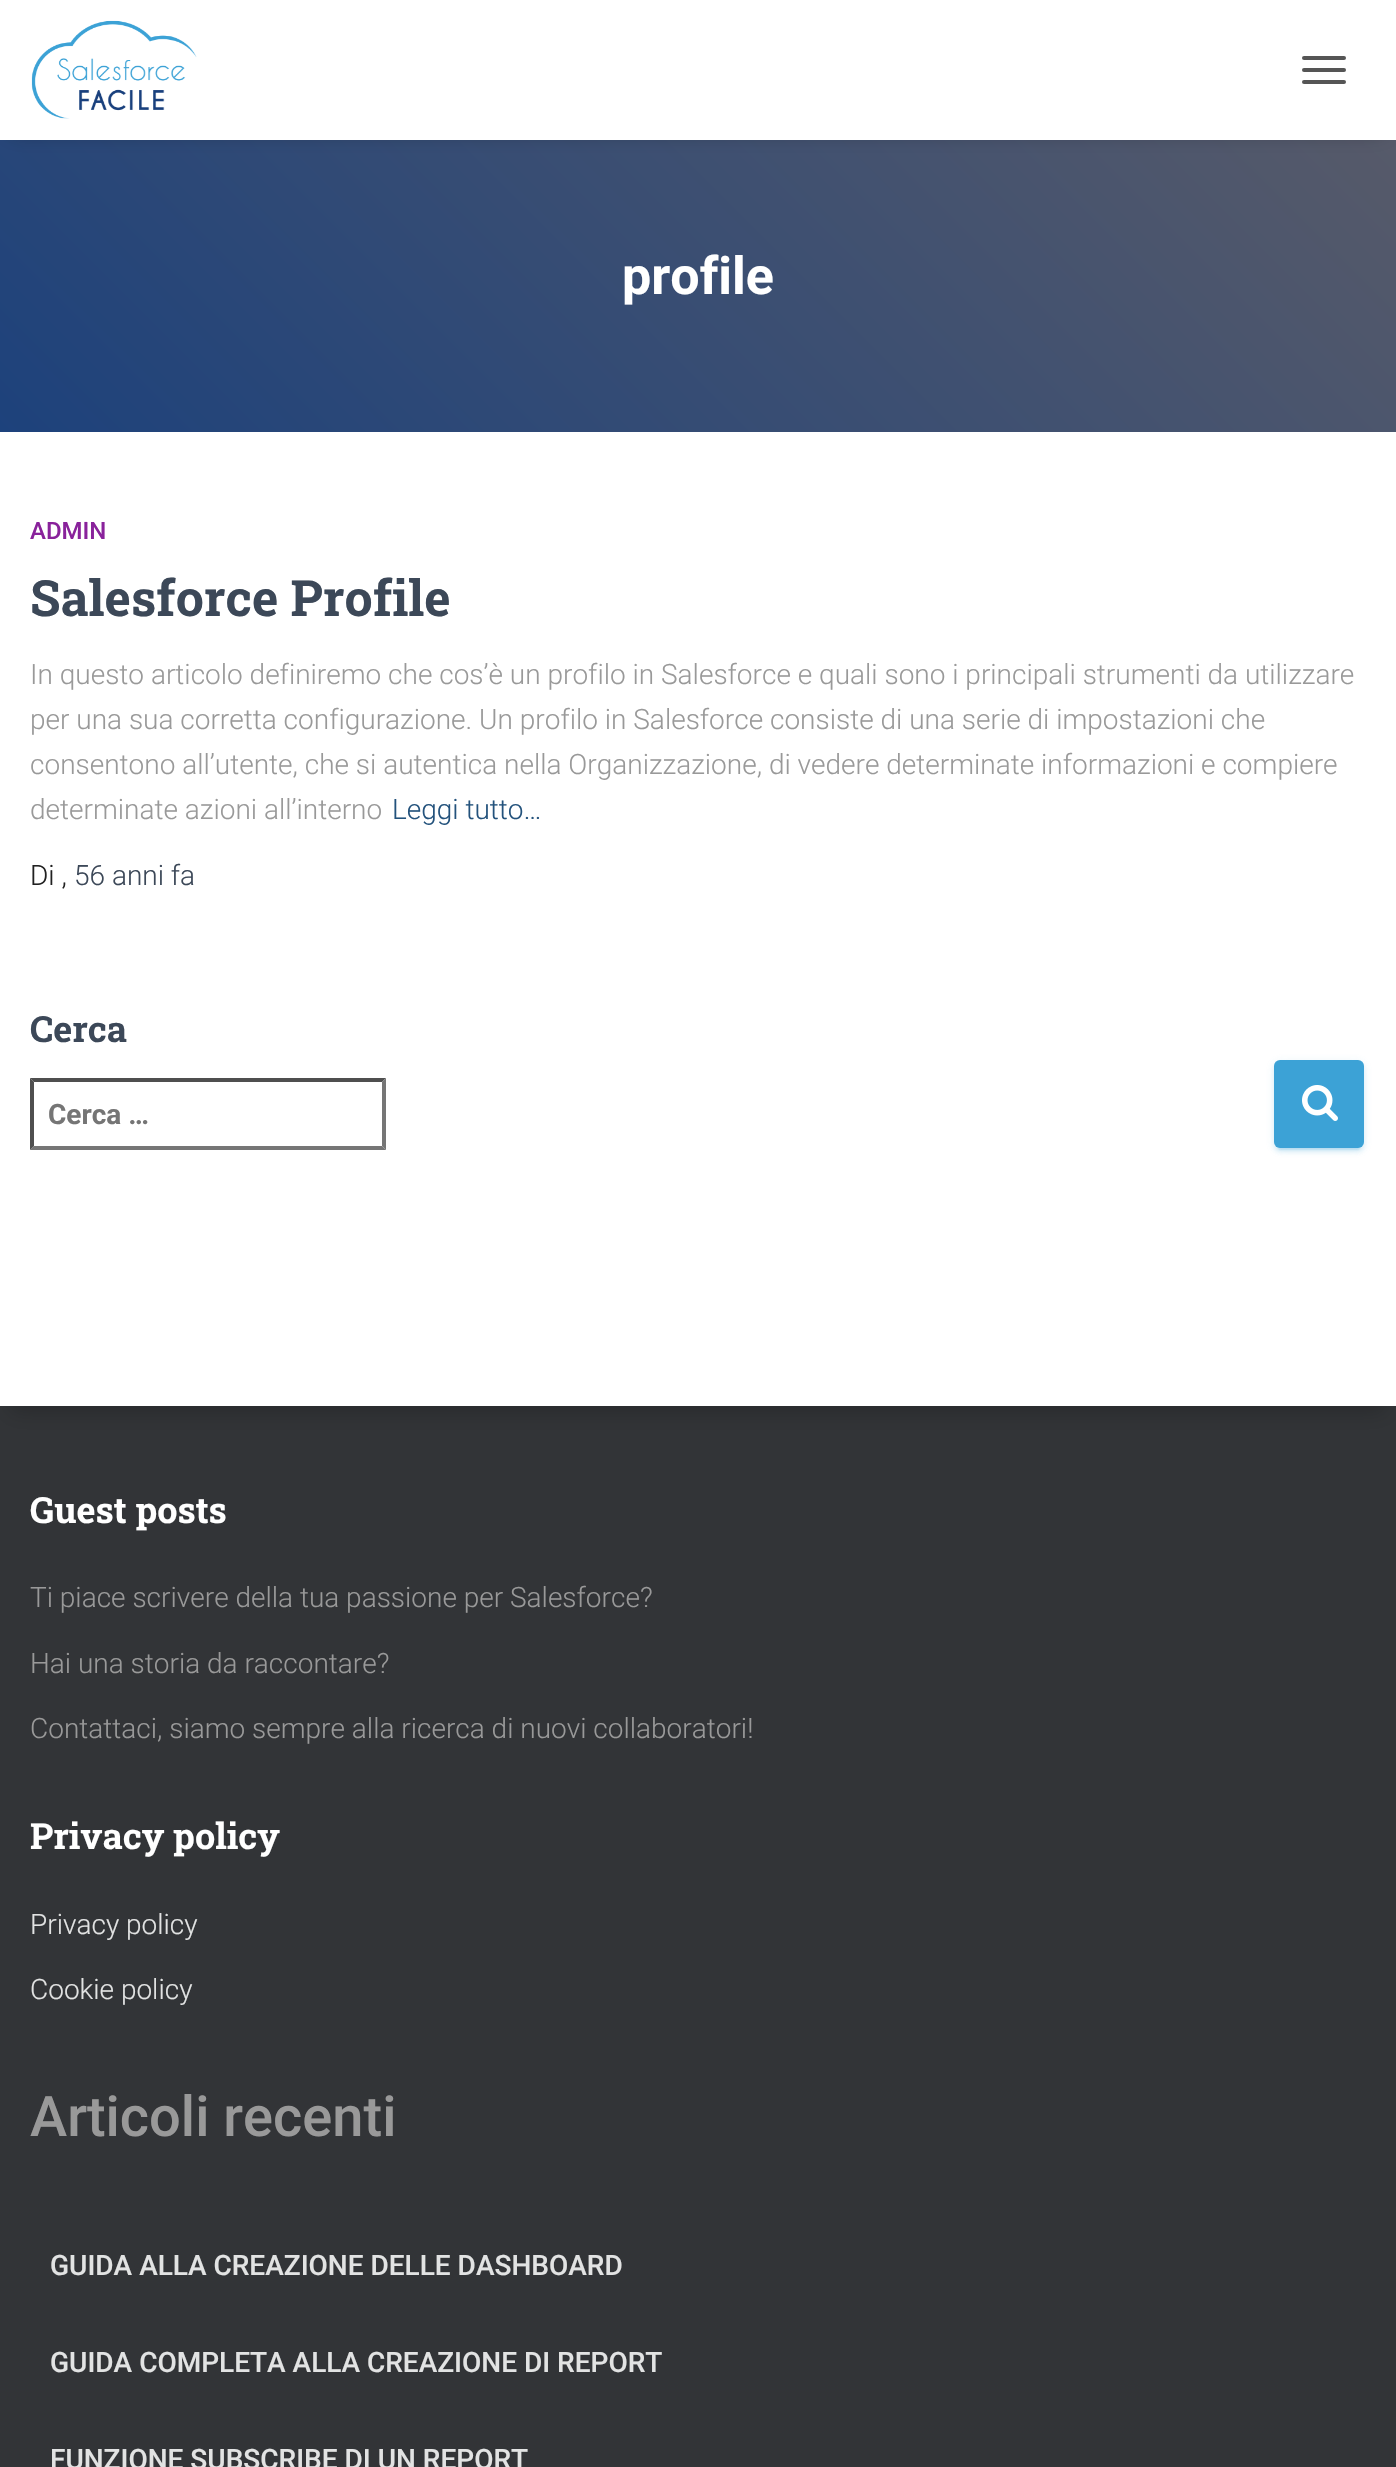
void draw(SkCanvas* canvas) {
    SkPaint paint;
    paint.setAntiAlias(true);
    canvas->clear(0xFF323437);
    {
        const SkColor colors[] = {0xFF19407D, 0xFF5B5C68};
        const float stops[] = {0, 1};
        const SkPoint ends[] = {{211, 763}, {1185, -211}};
        paint.setShader(SkGradientShader::MakeLinear(ends, colors, stops, 2, SkTileMode::kClamp));
        paint.setAlpha(255);
    }
    canvas->drawRect(SkRect::MakeXYWH(0, 140, 1396, 292), paint);
    paint.setShader(nullptr);
    paint.setColor(0x6B000000);
    paint.setMaskFilter(SkMaskFilter::MakeBlur(kNormal_SkBlurStyle, 10));
    canvas->drawRect(SkRect::MakeXYWH(12, 14, 1372, 116), paint);
    paint.setMaskFilter(nullptr);
    paint.setColor(0xFFFFFFFF);
    canvas->drawRect(SkRect::MakeXYWH(0, 0, 1396, 140), paint);
    canvas->drawImageRect(SkImages::DeferredFromEncodedData(SkData::MakeFromFileName("img1.png")), SkRect::MakeXYWH(31, 20, 166, 99), SkSamplingOptions());
    paint.setColor(0xFF555555);
    canvas->drawRoundRect(SkRect::MakeXYWH(1302, 56, 44, 4), 2, 2, paint);
    canvas->drawRoundRect(SkRect::MakeXYWH(1302, 68, 44, 4), 2, 2, paint);
    canvas->drawRoundRect(SkRect::MakeXYWH(1302, 80, 44, 4), 2, 2, paint);
    SkFont font1(fontMgr->matchFamilyStyle("Roboto", SkFontStyle::Bold()), 52);
    font1.setSubpixel(true);
    paint.setColor(0xFFFFFFFF);
    canvas->drawString("profile", 622, 294, font1, paint);
    paint.setColor(0x33000000);
    paint.setMaskFilter(SkMaskFilter::MakeBlur(kNormal_SkBlurStyle, 10));
    canvas->drawRect(SkRect::MakeXYWH(10, 458, 1376, 954), paint);
    paint.setMaskFilter(nullptr);
    paint.setColor(0xFFFFFFFF);
    canvas->drawRect(SkRect::MakeXYWH(0, 432, 1396, 974), paint);
    SkFont font2(fontMgr->matchFamilyStyle("Roboto", SkFontStyle(500, SkFontStyle::kNormal_Width, SkFontStyle::kUpright_Slant)), 24);
    font2.setSubpixel(true);
    paint.setColor(0xFF89229B);
    canvas->drawString("ADMIN", 30, 539, font2, paint);
    SkFont font3(fontMgr->matchFamilyStyle("Roboto Slab", SkFontStyle::Bold()), 50);
    font3.setSubpixel(true);
    paint.setColor(0xFF3C4858);
    canvas->drawString("Salesforce Profile", 30, 616, font3, paint);
    SkFont font4(fontMgr->matchFamilyStyle("Roboto", SkFontStyle(300, SkFontStyle::kNormal_Width, SkFontStyle::kUpright_Slant)), 28);
    font4.setSubpixel(true);
    paint.setColor(0xFF999999);
    canvas->drawString("In questo articolo definiremo che cos’è un profilo in Salesforce e quali sono i principali strumenti da utilizzare", 30, 684, font4, paint);
    canvas->drawString("per una sua corretta configurazione. Un profilo in Salesforce consiste di una serie di impostazioni che", 30, 729, font4, paint);
    canvas->drawString("consentono all’utente, che si autentica nella Organizzazione, di vedere determinate informazioni e compiere", 30, 774, font4, paint);
    canvas->drawString("determinate azioni all’interno", 30, 819, font4, paint);
    paint.setColor(0xFF23527C);
    canvas->drawString("Leggi tutto…", 392, 819, font4, paint);
    paint.setColor(0xFF212121);
    canvas->drawString("Di ,", 30, 885, font4, paint);
    paint.setColor(0xFF3C4858);
    canvas->drawString("56 anni fa", 74, 885, font4, paint);
    SkFont font5(fontMgr->matchFamilyStyle("Roboto Slab", SkFontStyle::Bold()), 36);
    font5.setSubpixel(true);
    canvas->drawString("Cerca", 30, 1042, font5, paint);
    paint.setColor(0xFF4F4F4F);
    canvas->drawPath(SkPathBuilder().moveTo(30, 1078).lineTo(386, 1078).lineTo(382, 1082).lineTo(34, 1082).close().detach(), paint);
    paint.setColor(0xFF767676);
    canvas->drawPath(SkPathBuilder().moveTo(386, 1078).lineTo(386, 1150).lineTo(382, 1146).lineTo(382, 1082).close().detach(), paint);
    canvas->drawPath(SkPathBuilder().moveTo(386, 1150).lineTo(30, 1150).lineTo(34, 1146).lineTo(382, 1146).close().detach(), paint);
    paint.setColor(0xFF4F4F4F);
    canvas->drawPath(SkPathBuilder().moveTo(30, 1150).lineTo(30, 1078).lineTo(34, 1082).lineTo(34, 1146).close().detach(), paint);
    SkFont font6(fontMgr->matchFamilyStyle("Roboto", SkFontStyle::Bold()), 28);
    font6.setSubpixel(true);
    paint.setColor(0xFF757575);
    canvas->drawString("Cerca …", 48, 1124, font6, paint);
    paint.setColor(0x1F3CA2D6);
    paint.setMaskFilter(SkMaskFilter::MakeBlur(kNormal_SkBlurStyle, 5));
    canvas->drawRoundRect(SkRect::MakeXYWH(1274, 1062, 90, 88), 6, 6, paint);
    paint.setMaskFilter(nullptr);
    paint.setColor(0x333CA2D6);
    paint.setMaskFilter(SkMaskFilter::MakeBlur(kNormal_SkBlurStyle, 1));
    canvas->drawRoundRect(SkRect::MakeXYWH(1278, 1070, 82, 80), 2, 2, paint);
    paint.setMaskFilter(nullptr);
    paint.setColor(0x243CA2D6);
    paint.setMaskFilter(SkMaskFilter::MakeBlur(kNormal_SkBlurStyle, 2));
    canvas->drawRoundRect(SkRect::MakeXYWH(1274, 1064, 90, 88), 6, 6, paint);
    paint.setMaskFilter(nullptr);
    paint.setColor(0xFF3CA2D6);
    canvas->drawRoundRect(SkRect::MakeXYWH(1274, 1060, 90, 88), 6, 6, paint);
    canvas->drawImageRect(SkImages::DeferredFromEncodedData(SkData::MakeFromFileName("img2.png")), SkRect::MakeXYWH(1302, 1085, 36, 36), SkSamplingOptions());
    paint.setColor(0xFFFFFFFF);
    canvas->drawString("Guest posts", 30, 1523, font5, paint);
    paint.setColor(0xFF999999);
    canvas->drawString("Ti piace scrivere della tua passione per Salesforce?", 30, 1607, font4, paint);
    canvas->drawString("Hai una storia da raccontare?", 30, 1673, font4, paint);
    canvas->drawString("Contattaci, siamo sempre alla ricerca di nuovi collaboratori!", 30, 1738, font4, paint);
    paint.setColor(0xFFFFFFFF);
    canvas->drawString("Privacy policy", 30, 1849, font5, paint);
    paint.setColor(0xFFE2E3E3);
    canvas->drawString("Privacy policy", 30, 1934, font4, paint);
    canvas->drawString("Cookie policy", 30, 1999, font4, paint);
    SkFont font7(fontMgr->matchFamilyStyle("Roboto", SkFontStyle(500, SkFontStyle::kNormal_Width, SkFontStyle::kUpright_Slant)), 56);
    font7.setSubpixel(true);
    paint.setColor(0xFF999999);
    canvas->drawString("Articoli recenti", 30, 2136, font7, paint);
    SkFont font8(fontMgr->matchFamilyStyle("Roboto", SkFontStyle(500, SkFontStyle::kNormal_Width, SkFontStyle::kUpright_Slant)), 28);
    font8.setSubpixel(true);
    paint.setColor(0xFFE2E3E3);
    canvas->drawString("GUIDA ALLA CREAZIONE DELLE DASHBOARD", 50, 2275, font8, paint);
    canvas->drawString("GUIDA COMPLETA ALLA CREAZIONE DI REPORT", 50, 2372, font8, paint);
    canvas->drawString("FUNZIONE SUBSCRIBE DI UN REPORT", 50, 2469, font8, paint);
}
